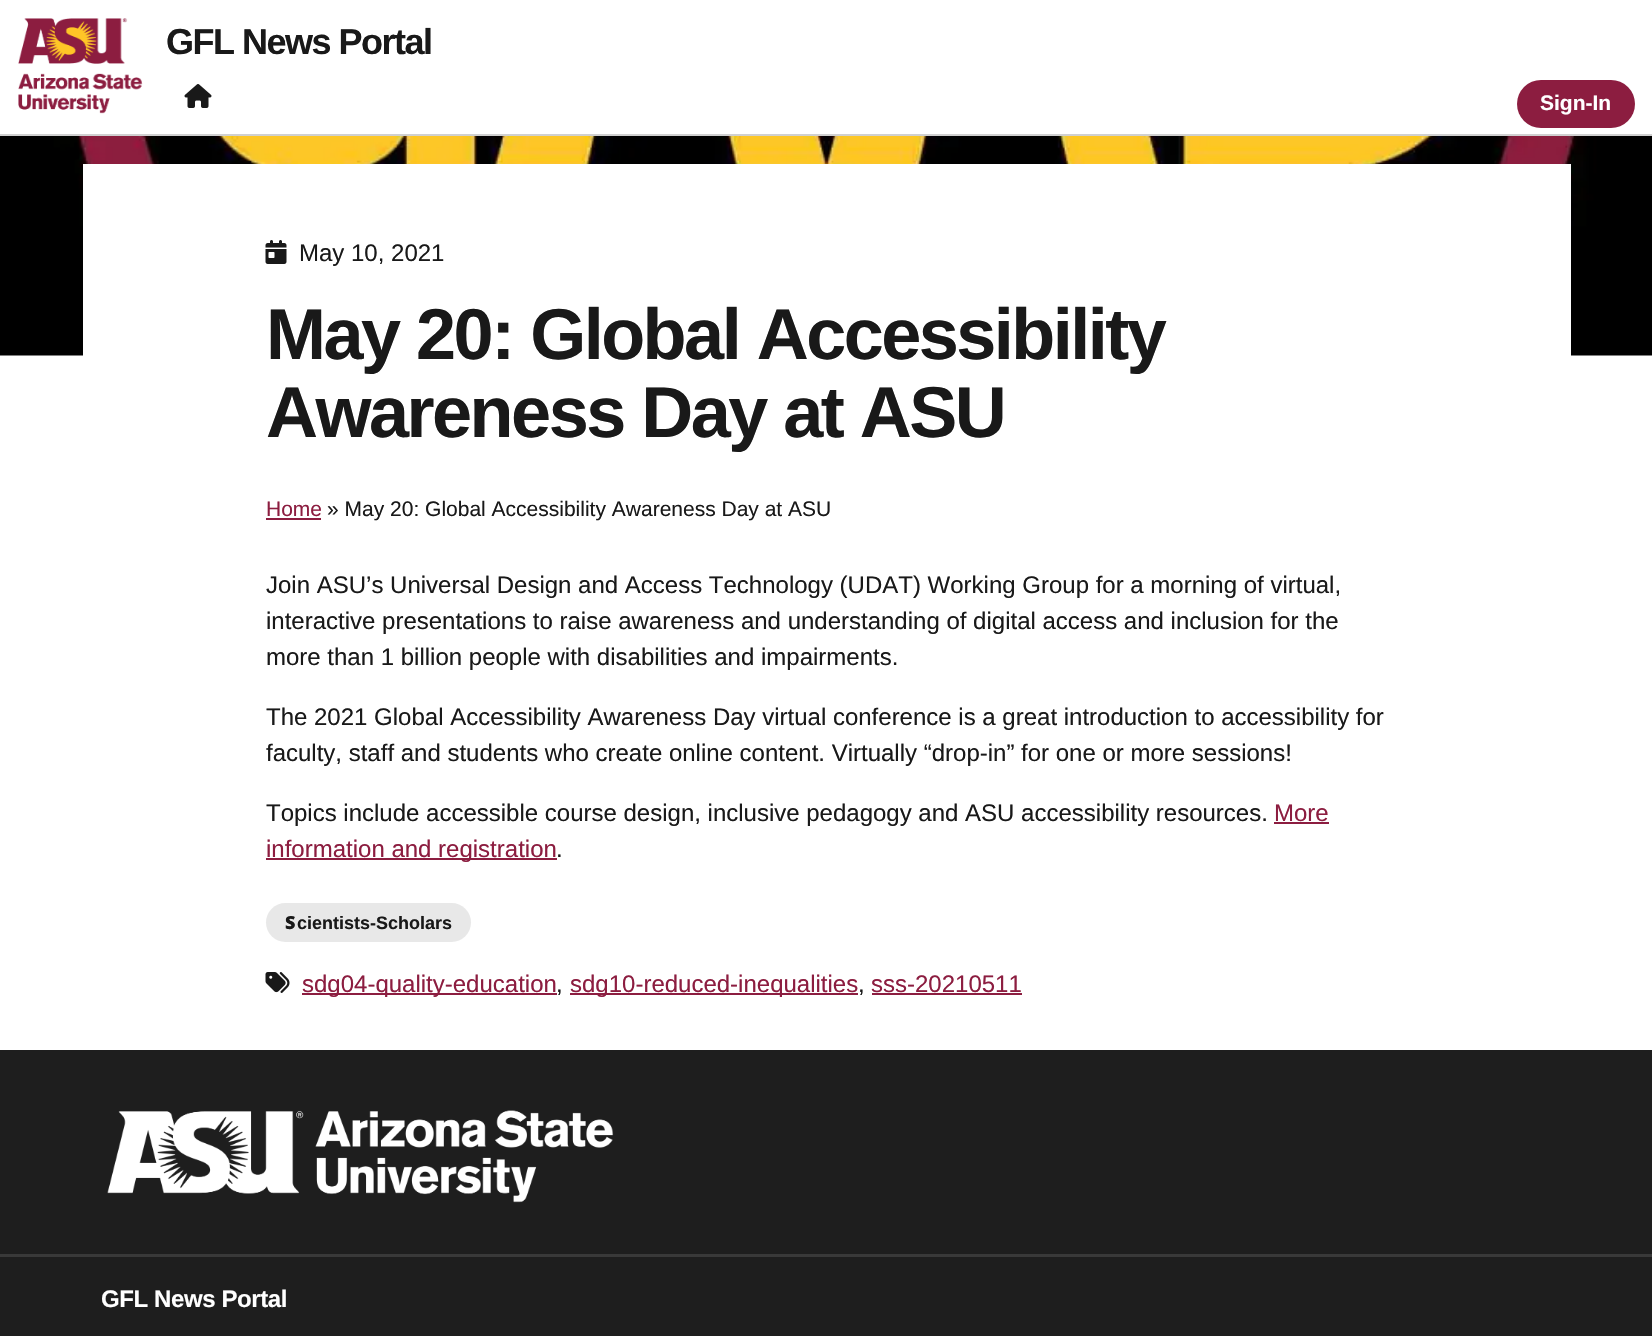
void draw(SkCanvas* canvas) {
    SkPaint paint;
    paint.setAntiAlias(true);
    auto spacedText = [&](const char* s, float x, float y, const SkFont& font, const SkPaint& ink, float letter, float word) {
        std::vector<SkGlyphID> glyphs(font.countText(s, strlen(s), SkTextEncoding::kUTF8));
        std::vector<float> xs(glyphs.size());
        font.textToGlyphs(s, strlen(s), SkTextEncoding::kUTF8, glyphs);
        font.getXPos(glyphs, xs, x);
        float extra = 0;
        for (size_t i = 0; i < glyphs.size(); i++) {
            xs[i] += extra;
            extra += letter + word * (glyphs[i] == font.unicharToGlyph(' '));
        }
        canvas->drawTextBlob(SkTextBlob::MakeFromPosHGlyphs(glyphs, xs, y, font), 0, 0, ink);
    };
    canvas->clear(0xFFFFFFFF);
    paint.setColor(0xFFD0D0D0);
    canvas->drawRect(SkRect::MakeXYWH(0, 134, 1652, 2), paint);
    canvas->drawImageRect(SkImages::DeferredFromEncodedData(SkData::MakeFromFileName("img1.png")), SkRect::MakeXYWH(18, 18, 125, 96), SkSamplingOptions());
    SkFont font1(fontMgr->matchFamilyStyle("Liberation Sans", SkFontStyle::Bold()), 36);
    font1.setSubpixel(true);
    paint.setColor(0xFF191919);
    spacedText("GFL News Portal", 166, 54, font1, paint, -1.5f, 0);
    canvas->drawImageRect(SkImages::DeferredFromEncodedData(SkData::MakeFromFileName("img2.png")), SkRect::MakeXYWH(184, 84, 28, 24), SkSamplingOptions());
    paint.setColor(0xFF8C1D40);
    canvas->drawRoundRect(SkRect::MakeXYWH(1517, 80, 118, 48), 24, 24, paint);
    SkFont font2(fontMgr->matchFamilyStyle("Liberation Sans", SkFontStyle::Bold()), 21);
    font2.setSubpixel(true);
    paint.setColor(0xFFFFFFFF);
    canvas->drawString("Sign-In", 1540, 110, font2, paint);
    canvas->drawImageRect(SkImages::DeferredFromEncodedData(SkData::MakeFromFileName("img3.png")), SkRect::MakeXYWH(0, 136, 1652, 220), SkSamplingOptions());
    canvas->drawRect(SkRect::MakeXYWH(83, 164, 1488, 192), paint);
    canvas->drawImageRect(SkImages::DeferredFromEncodedData(SkData::MakeFromFileName("img4.png")), SkRect::MakeXYWH(265, 240, 22, 24), SkSamplingOptions());
    SkFont font3(fontMgr->matchFamilyStyle("Liberation Sans", SkFontStyle::Normal()), 24);
    font3.setSubpixel(true);
    paint.setColor(0xFF191919);
    canvas->drawString("May 10, 2021", 299, 261, font3, paint);
    SkFont font4(fontMgr->matchFamilyStyle("Liberation Sans", SkFontStyle::Bold()), 72);
    font4.setSubpixel(true);
    spacedText("May 20: Global Accessibility", 266, 359, font4, paint, -2.5f, 0);
    spacedText("Awareness Day at ASU", 266, 437, font4, paint, -2.5f, 0);
    SkFont font5(fontMgr->matchFamilyStyle("Liberation Sans", SkFontStyle::Normal()), 21);
    font5.setSubpixel(true);
    paint.setColor(0xFF8C1D40);
    canvas->drawString("Home", 266, 516, font5, paint);
    canvas->drawRect(SkRect::MakeXYWH(266, 518, 55, 2), paint);
    paint.setColor(0xFF191919);
    canvas->drawString("» May 20: Global Accessibility Awareness Day at ASU", 327, 516, font5, paint);
    canvas->drawString("Join ASU’s Universal Design and Access Technology (UDAT) Working Group for a morning of virtual,", 266, 593, font3, paint);
    canvas->drawString("interactive presentations to raise awareness and understanding of digital access and inclusion for the", 266, 629, font3, paint);
    canvas->drawString("more than 1 billion people with disabilities and impairments.", 266, 665, font3, paint);
    canvas->drawString("The 2021 Global Accessibility Awareness Day virtual conference is a great introduction to accessibility for", 266, 725, font3, paint);
    canvas->drawString("faculty, staff and students who create online content. Virtually “drop-in” for one or more sessions!", 266, 761, font3, paint);
    canvas->drawString("Topics include accessible course design, inclusive pedagogy and ASU accessibility resources.", 266, 821, font3, paint);
    paint.setColor(0xFF8C1D40);
    canvas->drawString("More", 1274, 821, font3, paint);
    canvas->drawRect(SkRect::MakeXYWH(1274, 822, 55, 2), paint);
    canvas->drawRect(SkRect::MakeXYWH(266, 858, 291, 2), paint);
    canvas->drawString("information and registration", 266, 857, font3, paint);
    paint.setColor(0xFF191919);
    canvas->drawString(".", 556, 857, font3, paint);
    paint.setColor(0xFFE8E8E8);
    canvas->drawRoundRect(SkRect::MakeXYWH(266, 903, 205, 39), 19.5f, 19.5f, paint);
    SkFont font6(fontMgr->matchFamilyStyle("Noto Sans", SkFontStyle(900, SkFontStyle::kNormal_Width, SkFontStyle::kUpright_Slant)), 18);
    font6.setSubpixel(true);
    paint.setColor(0xFF191919);
    canvas->drawString("S", 285, 929, font6, paint);
    SkFont font7(fontMgr->matchFamilyStyle("Liberation Sans", SkFontStyle::Bold()), 18);
    font7.setSubpixel(true);
    canvas->drawString("cientists-Scholars", 297, 929, font7, paint);
    canvas->drawImageRect(SkImages::DeferredFromEncodedData(SkData::MakeFromFileName("img5.png")), SkRect::MakeXYWH(265, 972, 25, 21), SkSamplingOptions());
    paint.setColor(0xFF8C1D40);
    canvas->drawRect(SkRect::MakeXYWH(302, 993, 255, 2), paint);
    canvas->drawString("sdg04-quality-education", 302, 992, font3, paint);
    paint.setColor(0xFF191919);
    canvas->drawString(",", 556, 992, font3, paint);
    paint.setColor(0xFF8C1D40);
    canvas->drawRect(SkRect::MakeXYWH(570, 993, 288, 2), paint);
    canvas->drawString("sdg10-reduced-inequalities", 570, 992, font3, paint);
    paint.setColor(0xFF191919);
    canvas->drawString(",", 858, 992, font3, paint);
    paint.setColor(0xFF8C1D40);
    canvas->drawString("sss-20210511", 871, 992, font3, paint);
    canvas->drawRect(SkRect::MakeXYWH(872, 993, 150, 2), paint);
    paint.setColor(0xFF1E1E1E);
    canvas->drawRect(SkRect::MakeXYWH(0, 1050, 1652, 204), paint);
    canvas->drawImageRect(SkImages::DeferredFromEncodedData(SkData::MakeFromFileName("img6.png")), SkRect::MakeXYWH(107, 1110, 507, 93), SkSamplingOptions());
    canvas->drawRect(SkRect::MakeXYWH(0, 1257, 1652, 79), paint);
    paint.setColor(0xFF393939);
    canvas->drawRect(SkRect::MakeXYWH(0, 1254, 1652, 3), paint);
    SkFont font8(fontMgr->matchFamilyStyle("Liberation Sans", SkFontStyle::Bold()), 24);
    font8.setSubpixel(true);
    paint.setColor(0xFFFFFFFF);
    spacedText("GFL News Portal", 101, 1307, font8, paint, -0.4f, 0);
}
